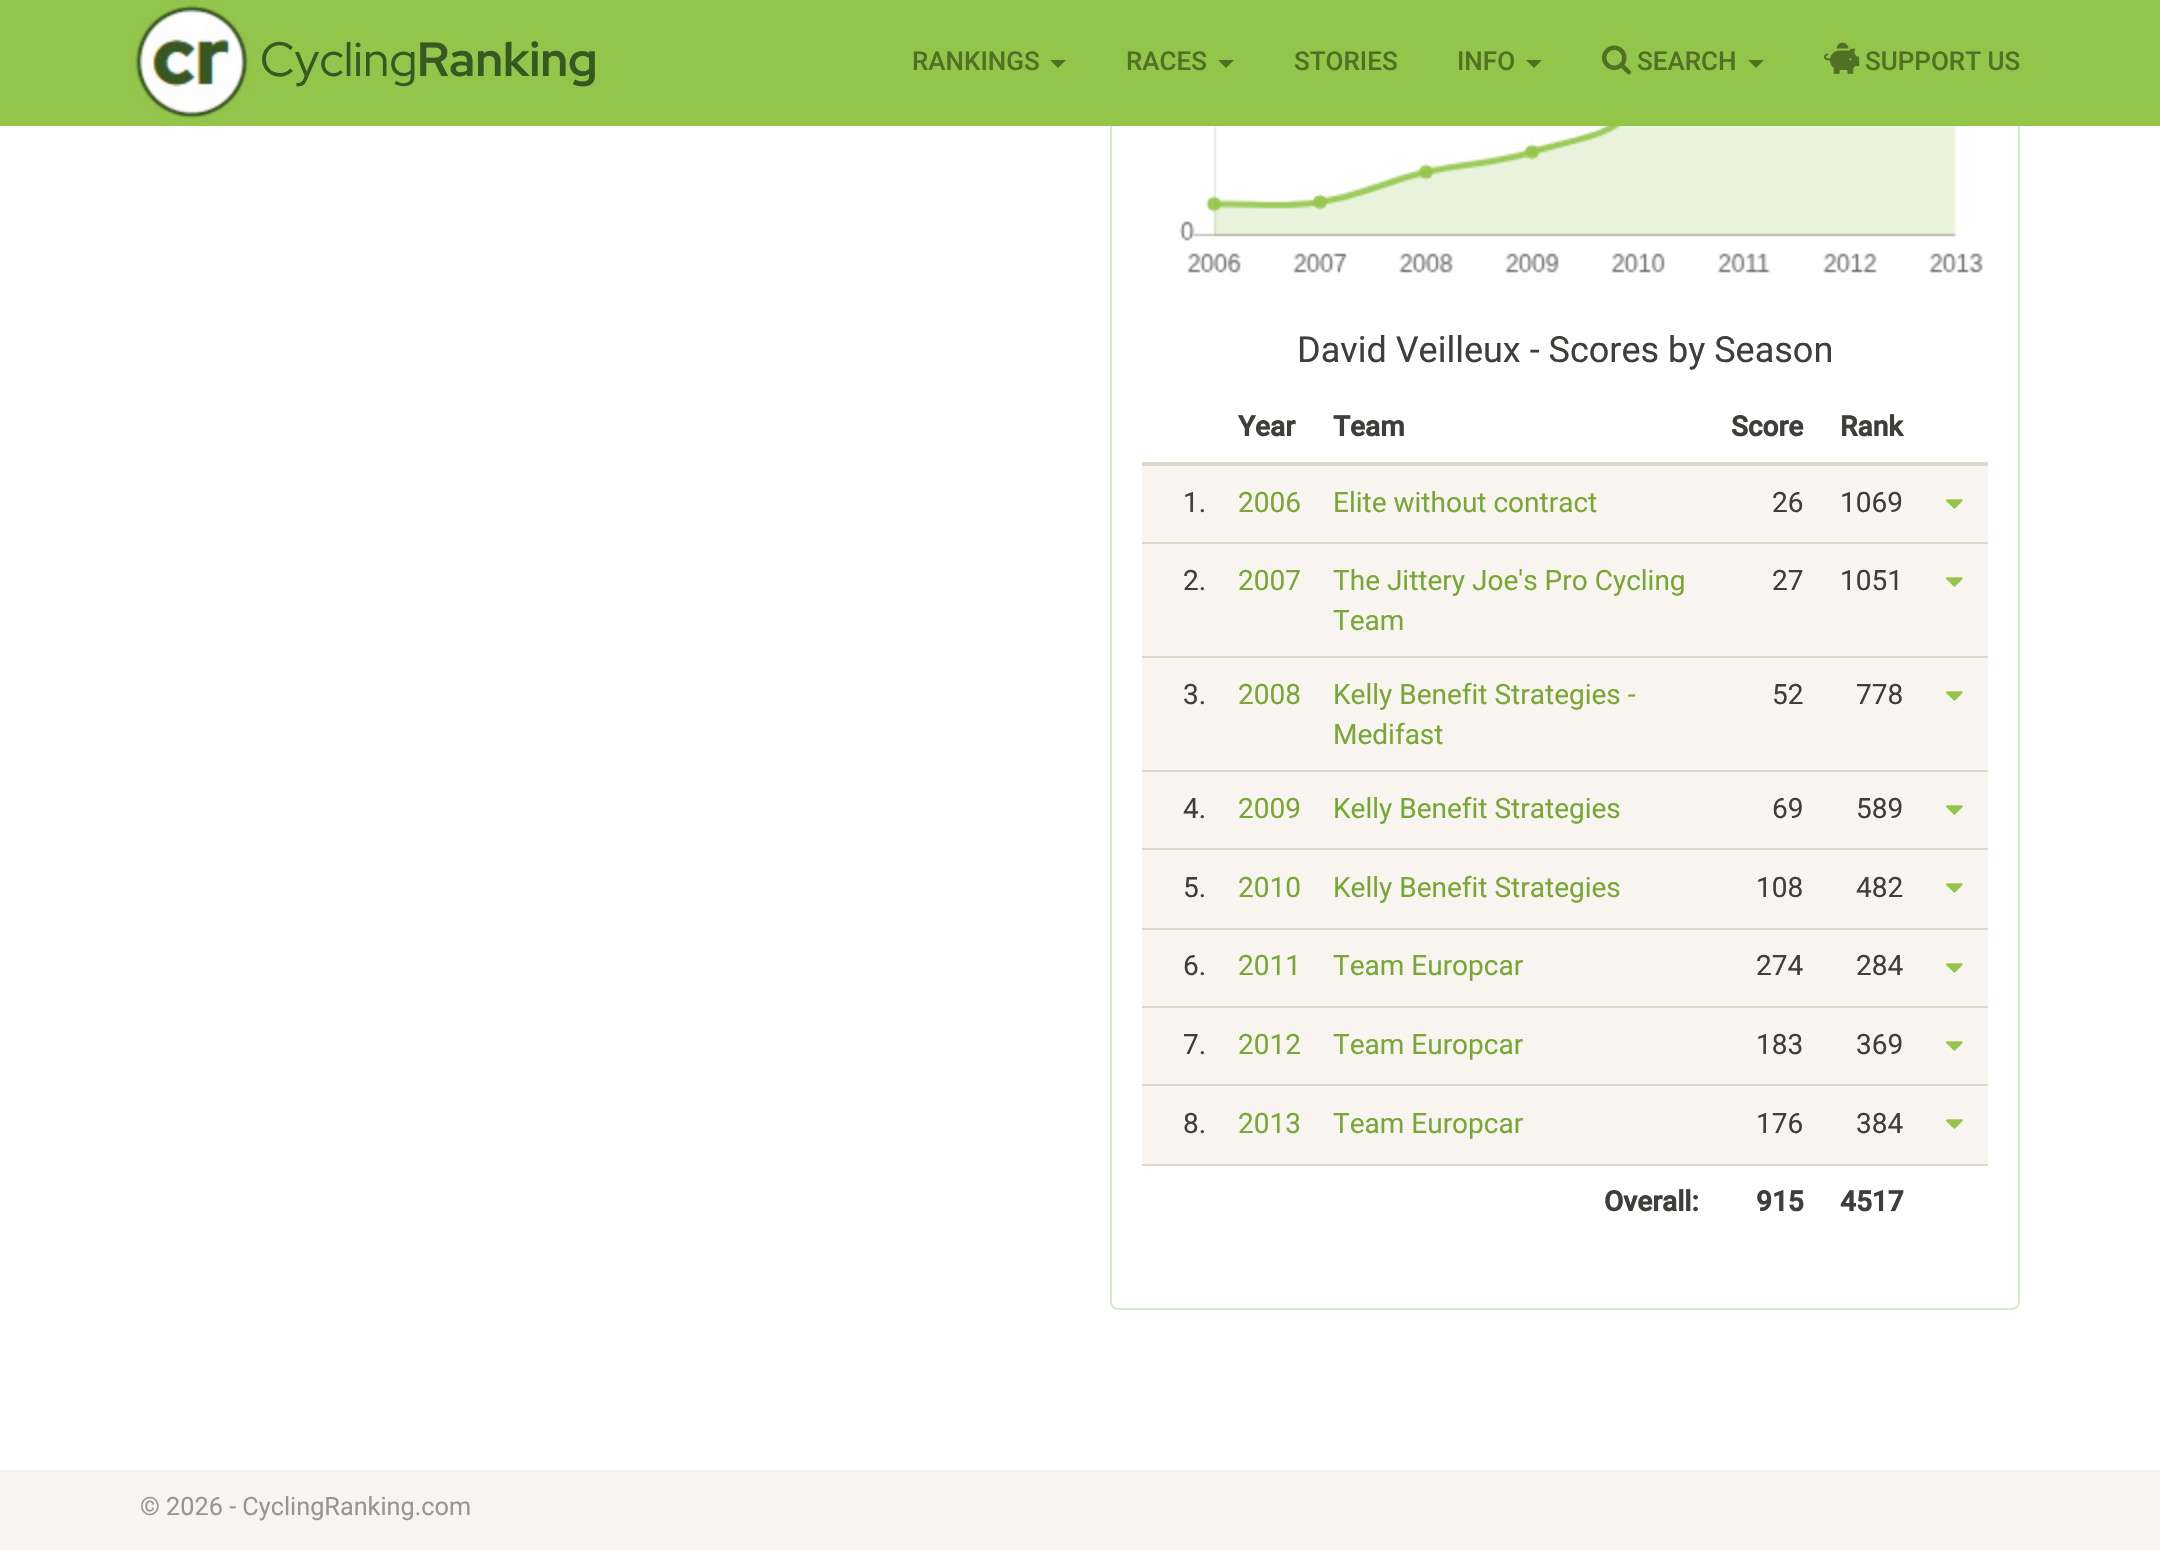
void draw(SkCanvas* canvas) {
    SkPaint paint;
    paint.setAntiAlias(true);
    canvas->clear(0xFFFFFFFF);
    paint.setStyle(SkPaint::kStroke_Style);
    paint.setStrokeWidth(2);
    paint.setColor(0xFFD6E9C6);
    canvas->drawRoundRect(SkRect::MakeXYWH(1111, -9, 908, 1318), 7, 7, paint);
    paint.setStyle(SkPaint::kFill_Style);
    paint.setColor(0xFF93C54B);
    canvas->drawRect(SkRect::MakeXYWH(0, 0, 2160, 126), paint);
    canvas->drawImageRect(SkImages::DeferredFromEncodedData(SkData::MakeFromFileName("img1.png")), SkRect::MakeXYWH(130, 0, 122, 124), SkSamplingOptions());
    SkFont font1(fontMgr->matchFamilyStyle("Red Hat Display", SkFontStyle::Normal()), 48);
    font1.setSubpixel(true);
    paint.setColor(0xFF385723);
    canvas->drawString("Cycling", 260, 76, font1, paint);
    SkFont font2(fontMgr->matchFamilyStyle("Red Hat Display", SkFontStyle::Bold()), 48);
    font2.setSubpixel(true);
    canvas->drawString("Ranking", 417, 76, font2, paint);
    SkFont font3(fontMgr->matchFamilyStyle("Roboto", SkFontStyle(500, SkFontStyle::kNormal_Width, SkFontStyle::kUpright_Slant)), 26);
    font3.setSubpixel(true);
    paint.setColor(0xFF517024);
    canvas->drawString("RANKINGS", 912, 70, font3, paint);
    canvas->drawPath(SkPathBuilder().moveTo(1050, 60).lineTo(1066, 60).lineTo(1058, 68).close().detach(), paint);
    canvas->drawString("RACES", 1126, 70, font3, paint);
    canvas->drawPath(SkPathBuilder().moveTo(1218, 60).lineTo(1234, 60).lineTo(1226, 68).close().detach(), paint);
    canvas->drawString("STORIES", 1294, 70, font3, paint);
    canvas->drawString("INFO", 1457, 70, font3, paint);
    canvas->drawPath(SkPathBuilder().moveTo(1526, 60).lineTo(1542, 60).lineTo(1534, 68).close().detach(), paint);
    canvas->drawImageRect(SkImages::DeferredFromEncodedData(SkData::MakeFromFileName("img2.png")), SkRect::MakeXYWH(1602, 45, 29, 30), SkSamplingOptions());
    canvas->drawString("SEARCH", 1637, 70, font3, paint);
    canvas->drawPath(SkPathBuilder().moveTo(1748, 60).lineTo(1764, 60).lineTo(1756, 68).close().detach(), paint);
    canvas->drawImageRect(SkImages::DeferredFromEncodedData(SkData::MakeFromFileName("img3.png")), SkRect::MakeXYWH(1824, 42, 36, 32), SkSamplingOptions());
    canvas->drawString("SUPPORT US", 1865, 70, font3, paint);
    canvas->drawImageRect(SkImages::DeferredFromEncodedData(SkData::MakeFromFileName("img4.png")), SkRect::MakeXYWH(1179, 126, 804, 147), SkSamplingOptions());
    SkFont font4(fontMgr->matchFamilyStyle("Roboto", SkFontStyle::Normal()), 36);
    font4.setSubpixel(true);
    paint.setColor(0xFF3E3F3A);
    canvas->drawString("David Veilleux - Scores by Season", 1297, 362, font4, paint);
    SkFont font5(fontMgr->matchFamilyStyle("Roboto", SkFontStyle::Bold()), 28);
    font5.setSubpixel(true);
    canvas->drawString("Year", 1238, 436, font5, paint);
    canvas->drawString("Team", 1333, 436, font5, paint);
    canvas->drawString("Score", 1731, 436, font5, paint);
    canvas->drawString("Rank", 1840, 436, font5, paint);
    paint.setColor(0xFFDFD7CA);
    canvas->drawRect(SkRect::MakeXYWH(1142, 462, 846, 4), paint);
    paint.setColor(0xFFF8F5F0);
    canvas->drawRect(SkRect::MakeXYWH(1142, 466, 846, 76), paint);
    SkFont font6(fontMgr->matchFamilyStyle("Roboto", SkFontStyle::Normal()), 28);
    font6.setSubpixel(true);
    paint.setColor(0xFF3E3F3A);
    canvas->drawString("1.", 1183, 512, font6, paint);
    paint.setColor(0xFF79A736);
    canvas->drawString("2006", 1238, 512, font6, paint);
    canvas->drawString("Elite without contract", 1333, 512, font6, paint);
    paint.setColor(0xFF3E3F3A);
    canvas->drawString("26", 1772, 512, font6, paint);
    canvas->drawString("1069", 1840, 512, font6, paint);
    canvas->drawImageRect(SkImages::DeferredFromEncodedData(SkData::MakeFromFileName("img5.png")), SkRect::MakeXYWH(1946, 499, 17, 10), SkSamplingOptions());
    paint.setColor(0xFFDFD7CA);
    canvas->drawRect(SkRect::MakeXYWH(1142, 542, 846, 2), paint);
    paint.setColor(0xFFF8F5F0);
    canvas->drawRect(SkRect::MakeXYWH(1142, 544, 846, 112), paint);
    paint.setColor(0xFF3E3F3A);
    canvas->drawString("2.", 1183, 590, font6, paint);
    paint.setColor(0xFF79A736);
    canvas->drawString("2007", 1238, 590, font6, paint);
    canvas->drawString("The Jittery Joe's Pro Cycling", 1333, 590, font6, paint);
    canvas->drawString("Team", 1333, 630, font6, paint);
    paint.setColor(0xFF3E3F3A);
    canvas->drawString("27", 1772, 590, font6, paint);
    canvas->drawString("1051", 1840, 590, font6, paint);
    canvas->drawImageRect(SkImages::DeferredFromEncodedData(SkData::MakeFromFileName("img5.png")), SkRect::MakeXYWH(1946, 577, 17, 10), SkSamplingOptions());
    paint.setColor(0xFFDFD7CA);
    canvas->drawRect(SkRect::MakeXYWH(1142, 656, 846, 2), paint);
    paint.setColor(0xFFF8F5F0);
    canvas->drawRect(SkRect::MakeXYWH(1142, 658, 846, 112), paint);
    paint.setColor(0xFF3E3F3A);
    canvas->drawString("3.", 1183, 704, font6, paint);
    paint.setColor(0xFF79A736);
    canvas->drawString("2008", 1238, 704, font6, paint);
    canvas->drawString("Kelly Benefit Strategies -", 1333, 704, font6, paint);
    canvas->drawString("Medifast", 1333, 744, font6, paint);
    paint.setColor(0xFF3E3F3A);
    canvas->drawString("52", 1772, 704, font6, paint);
    canvas->drawString("778", 1856, 704, font6, paint);
    canvas->drawImageRect(SkImages::DeferredFromEncodedData(SkData::MakeFromFileName("img5.png")), SkRect::MakeXYWH(1946, 691, 17, 10), SkSamplingOptions());
    paint.setColor(0xFFDFD7CA);
    canvas->drawRect(SkRect::MakeXYWH(1142, 770, 846, 2), paint);
    paint.setColor(0xFFF8F5F0);
    canvas->drawRect(SkRect::MakeXYWH(1142, 772, 846, 76), paint);
    paint.setColor(0xFF3E3F3A);
    canvas->drawString("4.", 1183, 818, font6, paint);
    paint.setColor(0xFF79A736);
    canvas->drawString("2009", 1238, 818, font6, paint);
    canvas->drawString("Kelly Benefit Strategies", 1333, 818, font6, paint);
    paint.setColor(0xFF3E3F3A);
    canvas->drawString("69", 1772, 818, font6, paint);
    canvas->drawString("589", 1856, 818, font6, paint);
    canvas->drawImageRect(SkImages::DeferredFromEncodedData(SkData::MakeFromFileName("img5.png")), SkRect::MakeXYWH(1946, 805, 17, 10), SkSamplingOptions());
    paint.setColor(0xFFDFD7CA);
    canvas->drawRect(SkRect::MakeXYWH(1142, 848, 846, 2), paint);
    paint.setColor(0xFFF8F5F0);
    canvas->drawRect(SkRect::MakeXYWH(1142, 850, 846, 78), paint);
    paint.setColor(0xFF3E3F3A);
    canvas->drawString("5.", 1183, 897, font6, paint);
    paint.setColor(0xFF79A736);
    canvas->drawString("2010", 1238, 897, font6, paint);
    canvas->drawString("Kelly Benefit Strategies", 1333, 897, font6, paint);
    paint.setColor(0xFF3E3F3A);
    canvas->drawString("108", 1756, 897, font6, paint);
    canvas->drawString("482", 1856, 897, font6, paint);
    canvas->drawImageRect(SkImages::DeferredFromEncodedData(SkData::MakeFromFileName("img5.png")), SkRect::MakeXYWH(1946, 883, 17, 10), SkSamplingOptions());
    paint.setColor(0xFFDFD7CA);
    canvas->drawRect(SkRect::MakeXYWH(1142, 928, 846, 2), paint);
    paint.setColor(0xFFF8F5F0);
    canvas->drawRect(SkRect::MakeXYWH(1142, 930, 846, 76), paint);
    paint.setColor(0xFF3E3F3A);
    canvas->drawString("6.", 1183, 975, font6, paint);
    paint.setColor(0xFF79A736);
    canvas->drawString("2011", 1238, 975, font6, paint);
    canvas->drawString("Team Europcar", 1333, 975, font6, paint);
    paint.setColor(0xFF3E3F3A);
    canvas->drawString("274", 1756, 975, font6, paint);
    canvas->drawString("284", 1856, 975, font6, paint);
    canvas->drawImageRect(SkImages::DeferredFromEncodedData(SkData::MakeFromFileName("img5.png")), SkRect::MakeXYWH(1946, 963, 17, 10), SkSamplingOptions());
    paint.setColor(0xFFDFD7CA);
    canvas->drawRect(SkRect::MakeXYWH(1142, 1006, 846, 2), paint);
    paint.setColor(0xFFF8F5F0);
    canvas->drawRect(SkRect::MakeXYWH(1142, 1008, 846, 76), paint);
    paint.setColor(0xFF3E3F3A);
    canvas->drawString("7.", 1183, 1054, font6, paint);
    paint.setColor(0xFF79A736);
    canvas->drawString("2012", 1238, 1054, font6, paint);
    canvas->drawString("Team Europcar", 1333, 1054, font6, paint);
    paint.setColor(0xFF3E3F3A);
    canvas->drawString("183", 1756, 1054, font6, paint);
    canvas->drawString("369", 1856, 1054, font6, paint);
    canvas->drawImageRect(SkImages::DeferredFromEncodedData(SkData::MakeFromFileName("img5.png")), SkRect::MakeXYWH(1946, 1041, 17, 10), SkSamplingOptions());
    paint.setColor(0xFFDFD7CA);
    canvas->drawRect(SkRect::MakeXYWH(1142, 1084, 846, 2), paint);
    paint.setColor(0xFFF8F5F0);
    canvas->drawRect(SkRect::MakeXYWH(1142, 1086, 846, 78), paint);
    paint.setColor(0xFF3E3F3A);
    canvas->drawString("8.", 1183, 1133, font6, paint);
    paint.setColor(0xFF79A736);
    canvas->drawString("2013", 1238, 1133, font6, paint);
    canvas->drawString("Team Europcar", 1333, 1133, font6, paint);
    paint.setColor(0xFF3E3F3A);
    canvas->drawString("176", 1756, 1133, font6, paint);
    canvas->drawString("384", 1856, 1133, font6, paint);
    canvas->drawImageRect(SkImages::DeferredFromEncodedData(SkData::MakeFromFileName("img5.png")), SkRect::MakeXYWH(1946, 1119, 17, 10), SkSamplingOptions());
    paint.setColor(0xFFDFD7CA);
    canvas->drawRect(SkRect::MakeXYWH(1142, 1164, 846, 2), paint);
    paint.setColor(0xFF3E3F3A);
    canvas->drawString("Overall:", 1604, 1211, font5, paint);
    canvas->drawString("915", 1756, 1211, font5, paint);
    canvas->drawString("4517", 1840, 1211, font5, paint);
    paint.setColor(0xFFF8F5F0);
    canvas->drawRect(SkRect::MakeXYWH(0, 1470, 2160, 80), paint);
    SkFont font7(fontMgr->matchFamilyStyle("Roboto", SkFontStyle::Normal()), 25.25f);
    font7.setSubpixel(true);
    paint.setColor(0xFF98978B);
    canvas->drawString("© 2026 - CyclingRanking.com", 140, 1515, font7, paint);
}
